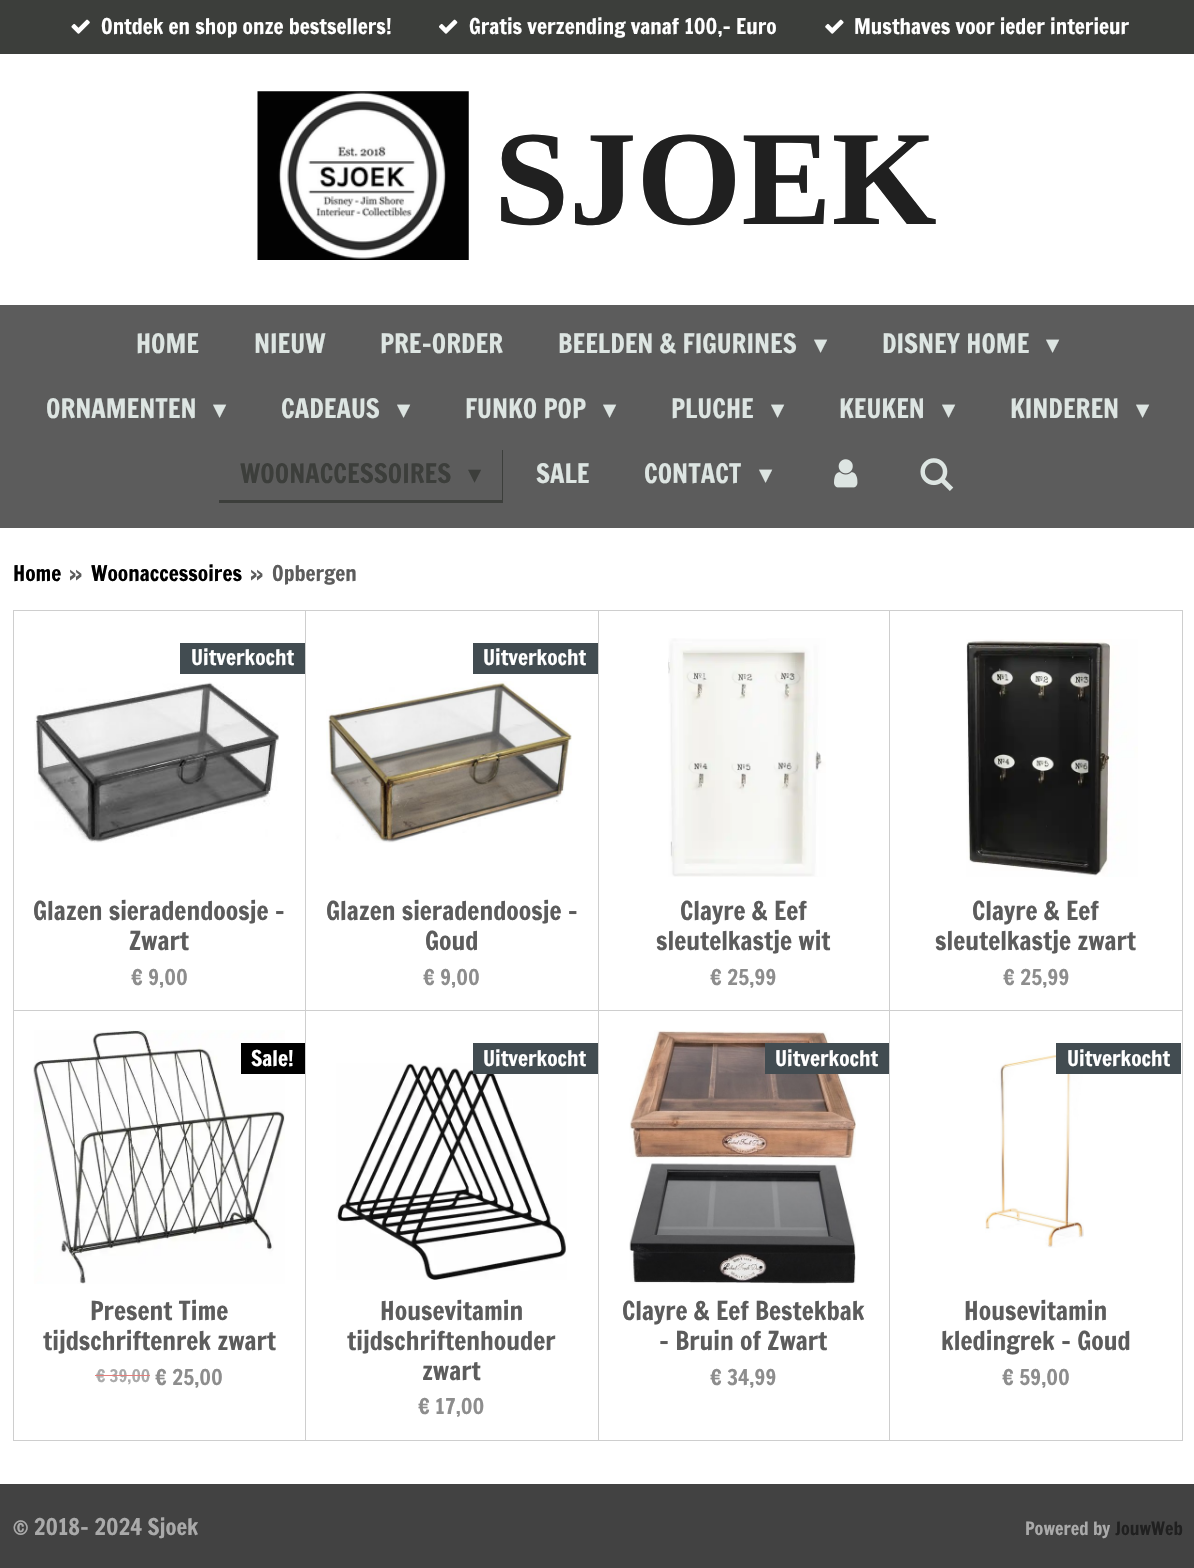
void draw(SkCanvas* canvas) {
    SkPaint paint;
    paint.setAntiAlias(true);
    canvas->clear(0xFFFFFFFF);
    paint.setColor(0xFF3C3E3B);
    canvas->drawRect(SkRect::MakeXYWH(0, 0, 1194, 54), paint);
    canvas->drawImageRect(SkImages::DeferredFromEncodedData(SkData::MakeFromFileName("img1.png")), SkRect::MakeXYWH(71, 19, 19, 15), SkSamplingOptions());
    SkFont font1(fontMgr->matchFamilyStyle("Francois One", SkFontStyle::Normal()), 21.25f);
    font1.setSubpixel(true);
    paint.setColor(0xFFFFFFFF);
    canvas->drawString("Ontdek en shop onze bestsellers!", 101, 34, font1, paint);
    canvas->drawImageRect(SkImages::DeferredFromEncodedData(SkData::MakeFromFileName("img2.png")), SkRect::MakeXYWH(439, 19, 19, 15), SkSamplingOptions());
    canvas->drawString("Gratis verzending vanaf 100,- Euro", 469, 34, font1, paint);
    canvas->drawImageRect(SkImages::DeferredFromEncodedData(SkData::MakeFromFileName("img3.png")), SkRect::MakeXYWH(825, 19, 19, 15), SkSamplingOptions());
    canvas->drawString("Musthaves voor ieder interieur", 854, 34, font1, paint);
    canvas->drawImageRect(SkImages::DeferredFromEncodedData(SkData::MakeFromFileName("img4.png")), SkRect::MakeXYWH(257, 91, 212, 169), SkSamplingOptions());
    SkFont font2(fontMgr->matchFamilyStyle("Liberation Serif", SkFontStyle::Bold()), 135);
    font2.setSubpixel(true);
    paint.setColor(0xFF202020);
    canvas->drawString("SJOEK", 494, 224, font2, paint);
    paint.setColor(0xFF5C5C5C);
    canvas->drawRect(SkRect::MakeXYWH(0, 305, 1194, 223), paint);
    SkFont font3(fontMgr->matchFamilyStyle("Francois One", SkFontStyle::Normal()), 26.25f);
    font3.setSubpixel(true);
    paint.setColor(0xFFDDE5E2);
    canvas->drawString("HOME", 136, 353, font3, paint);
    canvas->drawString("NIEUW", 254, 353, font3, paint);
    canvas->drawString("PRE-ORDER", 380, 353, font3, paint);
    canvas->drawString("BEELDEN & FIGURINES", 558, 353, font3, paint);
    SkFont font4(fontMgr->matchFamilyStyle("DejaVu Sans", SkFontStyle::Normal()), 26.25f);
    font4.setSubpixel(true);
    canvas->drawString("▾", 814, 353, font4, paint);
    canvas->drawString("DISNEY HOME", 882, 353, font3, paint);
    canvas->drawString("▾", 1046, 353, font4, paint);
    canvas->drawString("ORNAMENTEN", 46, 418, font3, paint);
    canvas->drawString("▾", 213, 418, font4, paint);
    canvas->drawString("CADEAUS", 281, 418, font3, paint);
    canvas->drawString("▾", 397, 418, font4, paint);
    canvas->drawString("FUNKO POP", 465, 418, font3, paint);
    canvas->drawString("▾", 603, 418, font4, paint);
    canvas->drawString("PLUCHE", 671, 418, font3, paint);
    canvas->drawString("▾", 771, 418, font4, paint);
    canvas->drawString("KEUKEN", 839, 418, font3, paint);
    canvas->drawString("▾", 942, 418, font4, paint);
    canvas->drawString("KINDEREN", 1010, 418, font3, paint);
    canvas->drawString("▾", 1136, 418, font4, paint);
    paint.setColor(0xFF3C3E3B);
    canvas->drawPath(SkPathBuilder().moveTo(219, 500).lineTo(219, 503).lineTo(503, 503).lineTo(503, 450).lineTo(502, 450).lineTo(502, 500).close().detach(), paint);
    canvas->drawString("WOONACCESSOIRES", 240, 483, font3, paint);
    canvas->drawString("▾", 468, 483, font4, paint);
    paint.setColor(0xFFDDE5E2);
    canvas->drawString("SALE", 536, 483, font3, paint);
    canvas->drawString("CONTACT", 644, 483, font3, paint);
    canvas->drawString("▾", 759, 483, font4, paint);
    canvas->drawImageRect(SkImages::DeferredFromEncodedData(SkData::MakeFromFileName("img5.png")), SkRect::MakeXYWH(834, 459, 24, 29), SkSamplingOptions());
    canvas->drawImageRect(SkImages::DeferredFromEncodedData(SkData::MakeFromFileName("img6.png")), SkRect::MakeXYWH(920, 458, 34, 33), SkSamplingOptions());
    paint.setColor(0xFF000000);
    canvas->drawString("Home", 13, 581, font1, paint);
    paint.setColor(0xFF5C5C5C);
    canvas->drawString("»", 69, 581, font1, paint);
    paint.setColor(0xFF000000);
    canvas->drawString("Woonaccessoires", 91, 581, font1, paint);
    paint.setColor(0xFF5C5C5C);
    canvas->drawString("»", 250, 581, font1, paint);
    canvas->drawString("Opbergen", 272, 581, font1, paint);
    paint.setStyle(SkPaint::kStroke_Style);
    paint.setStrokeWidth(1);
    paint.setColor(0xFFCECECE);
    canvas->drawRect(SkRect::MakeXYWH(13.5f, 610.5f, 292, 400), paint);
    paint.setStyle(SkPaint::kFill_Style);
    paint.setColor(0xFF424C51);
    canvas->drawRect(SkRect::MakeXYWH(180, 643, 125, 31), paint);
    paint.setColor(0xFFFFFFFF);
    canvas->drawString("Uitverkocht", 191, 665, font1, paint);
    canvas->drawImageRect(SkImages::DeferredFromEncodedData(SkData::MakeFromFileName("img7.png")), SkRect::MakeXYWH(34, 682, 245, 161), SkSamplingOptions());
    SkFont font5(fontMgr->matchFamilyStyle("Francois One", SkFontStyle::Normal()), 25.5f);
    font5.setSubpixel(true);
    paint.setColor(0xFF5C5C5C);
    canvas->drawString("Glazen sieradendoosje -", 33, 920, font5, paint);
    canvas->drawString("Zwart", 129, 950, font5, paint);
    paint.setColor(0xFF8D8D8D);
    canvas->drawString("€ 9,00", 131, 985, font1, paint);
    paint.setStyle(SkPaint::kStroke_Style);
    paint.setColor(0xFFCECECE);
    canvas->drawRect(SkRect::MakeXYWH(305.5f, 610.5f, 293, 400), paint);
    paint.setStyle(SkPaint::kFill_Style);
    paint.setColor(0xFF424C51);
    canvas->drawRect(SkRect::MakeXYWH(473, 643, 125, 31), paint);
    paint.setColor(0xFFFFFFFF);
    canvas->drawString("Uitverkocht", 483, 665, font1, paint);
    canvas->drawImageRect(SkImages::DeferredFromEncodedData(SkData::MakeFromFileName("img8.png")), SkRect::MakeXYWH(326, 681, 246, 162), SkSamplingOptions());
    paint.setColor(0xFF5C5C5C);
    canvas->drawString("Glazen sieradendoosje -", 326, 920, font5, paint);
    canvas->drawString("Goud", 425, 950, font5, paint);
    paint.setColor(0xFF8D8D8D);
    canvas->drawString("€ 9,00", 423, 985, font1, paint);
    paint.setStyle(SkPaint::kStroke_Style);
    paint.setColor(0xFFCECECE);
    canvas->drawRect(SkRect::MakeXYWH(598.5f, 610.5f, 291, 400), paint);
    canvas->drawImageRect(SkImages::DeferredFromEncodedData(SkData::MakeFromFileName("img9.png")), SkRect::MakeXYWH(668, 638, 158, 239), SkSamplingOptions());
    paint.setStyle(SkPaint::kFill_Style);
    paint.setColor(0xFF5C5C5C);
    canvas->drawString("Clayre & Eef", 680, 920, font5, paint);
    canvas->drawString("sleutelkastje wit", 656, 950, font5, paint);
    paint.setColor(0xFF8D8D8D);
    canvas->drawString("€ 25,99", 710, 985, font1, paint);
    paint.setStyle(SkPaint::kStroke_Style);
    paint.setColor(0xFFCECECE);
    canvas->drawRect(SkRect::MakeXYWH(889.5f, 610.5f, 293, 400), paint);
    canvas->drawImageRect(SkImages::DeferredFromEncodedData(SkData::MakeFromFileName("img10.png")), SkRect::MakeXYWH(966, 639, 172, 238), SkSamplingOptions());
    paint.setStyle(SkPaint::kFill_Style);
    paint.setColor(0xFF5C5C5C);
    canvas->drawString("Clayre & Eef", 972, 920, font5, paint);
    canvas->drawString("sleutelkastje zwart", 935, 950, font5, paint);
    paint.setColor(0xFF8D8D8D);
    canvas->drawString("€ 25,99", 1003, 985, font1, paint);
    paint.setStyle(SkPaint::kStroke_Style);
    paint.setColor(0xFFCECECE);
    canvas->drawRect(SkRect::MakeXYWH(13.5f, 1010.5f, 292, 430), paint);
    canvas->drawImageRect(SkImages::DeferredFromEncodedData(SkData::MakeFromFileName("img11.png")), SkRect::MakeXYWH(33, 1030, 252, 254), SkSamplingOptions());
    paint.setStyle(SkPaint::kFill_Style);
    paint.setColor(0xFF000000);
    canvas->drawRect(SkRect::MakeXYWH(241, 1043, 64, 31), paint);
    paint.setColor(0xFFFFFFFF);
    canvas->drawString("Sale!", 251, 1066, font1, paint);
    paint.setColor(0xFF5C5C5C);
    canvas->drawString("Present Time", 90, 1320, font5, paint);
    canvas->drawString("tijdschriftenrek zwart", 43, 1350, font5, paint);
    SkFont font6(fontMgr->matchFamilyStyle("Francois One", SkFontStyle::Normal()), 17);
    font6.setSubpixel(true);
    paint.setColor(0xFFAAAAAA);
    canvas->drawString("€ 39,00", 96, 1382, font6, paint);
    paint.setColor(0xFFE37E7B);
    canvas->drawRect(SkRect::MakeXYWH(95, 1375, 55, 1), paint);
    paint.setColor(0xFF8D8D8D);
    canvas->drawString("€ 25,00", 155, 1385, font1, paint);
    paint.setStyle(SkPaint::kStroke_Style);
    paint.setColor(0xFFCECECE);
    canvas->drawRect(SkRect::MakeXYWH(305.5f, 1010.5f, 293, 430), paint);
    canvas->drawImageRect(SkImages::DeferredFromEncodedData(SkData::MakeFromFileName("img12.png")), SkRect::MakeXYWH(336, 1063, 231, 217), SkSamplingOptions());
    paint.setStyle(SkPaint::kFill_Style);
    paint.setColor(0xFF424C51);
    canvas->drawRect(SkRect::MakeXYWH(473, 1043, 125, 31), paint);
    paint.setColor(0xFFFFFFFF);
    canvas->drawString("Uitverkocht", 483, 1066, font1, paint);
    paint.setColor(0xFF5C5C5C);
    canvas->drawString("Housevitamin", 380, 1320, font5, paint);
    canvas->drawString("tijdschriftenhouder", 347, 1350, font5, paint);
    canvas->drawString("zwart", 422, 1380, font5, paint);
    paint.setColor(0xFF8D8D8D);
    canvas->drawString("€ 17,00", 418, 1414, font1, paint);
    paint.setStyle(SkPaint::kStroke_Style);
    paint.setColor(0xFFCECECE);
    canvas->drawRect(SkRect::MakeXYWH(598.5f, 1010.5f, 291, 430), paint);
    canvas->drawImageRect(SkImages::DeferredFromEncodedData(SkData::MakeFromFileName("img13.png")), SkRect::MakeXYWH(629, 1030, 227, 254), SkSamplingOptions());
    paint.setStyle(SkPaint::kFill_Style);
    paint.setColor(0xFF424C51);
    canvas->drawRect(SkRect::MakeXYWH(765, 1043, 124, 31), paint);
    paint.setColor(0xFFFFFFFF);
    canvas->drawString("Uitverkocht", 775, 1066, font1, paint);
    paint.setColor(0xFF5C5C5C);
    canvas->drawString("Clayre & Eef Bestekbak", 622, 1320, font5, paint);
    canvas->drawString("- Bruin of Zwart", 659, 1350, font5, paint);
    paint.setColor(0xFF8D8D8D);
    canvas->drawString("€ 34,99", 710, 1385, font1, paint);
    paint.setStyle(SkPaint::kStroke_Style);
    paint.setColor(0xFFCECECE);
    canvas->drawRect(SkRect::MakeXYWH(889.5f, 1010.5f, 293, 430), paint);
    canvas->drawImageRect(SkImages::DeferredFromEncodedData(SkData::MakeFromFileName("img14.png")), SkRect::MakeXYWH(985, 1051, 99, 197), SkSamplingOptions());
    paint.setStyle(SkPaint::kFill_Style);
    paint.setColor(0xFF424C51);
    canvas->drawRect(SkRect::MakeXYWH(1056, 1043, 125, 31), paint);
    paint.setColor(0xFFFFFFFF);
    canvas->drawString("Uitverkocht", 1067, 1066, font1, paint);
    paint.setColor(0xFF5C5C5C);
    canvas->drawString("Housevitamin", 964, 1320, font5, paint);
    canvas->drawString("kledingrek - Goud", 941, 1350, font5, paint);
    paint.setColor(0xFF8D8D8D);
    canvas->drawString("€ 59,00", 1002, 1385, font1, paint);
    paint.setColor(0xFF424242);
    canvas->drawRect(SkRect::MakeXYWH(0, 1484, 1194, 84), paint);
    SkFont font7(fontMgr->matchFamilyStyle("Francois One", SkFontStyle::Normal()), 22.5f);
    font7.setSubpixel(true);
    paint.setColor(0xFFAAAAAA);
    canvas->drawString("© 2018- 2024 Sjoek", 13, 1535, font7, paint);
    SkFont font8(fontMgr->matchFamilyStyle("Francois One", SkFontStyle::Normal()), 18);
    font8.setSubpixel(true);
    canvas->drawString("Powered by", 1025, 1535, font8, paint);
    paint.setColor(0xFF202020);
    canvas->drawString("JouwWeb", 1115, 1535, font8, paint);
}
